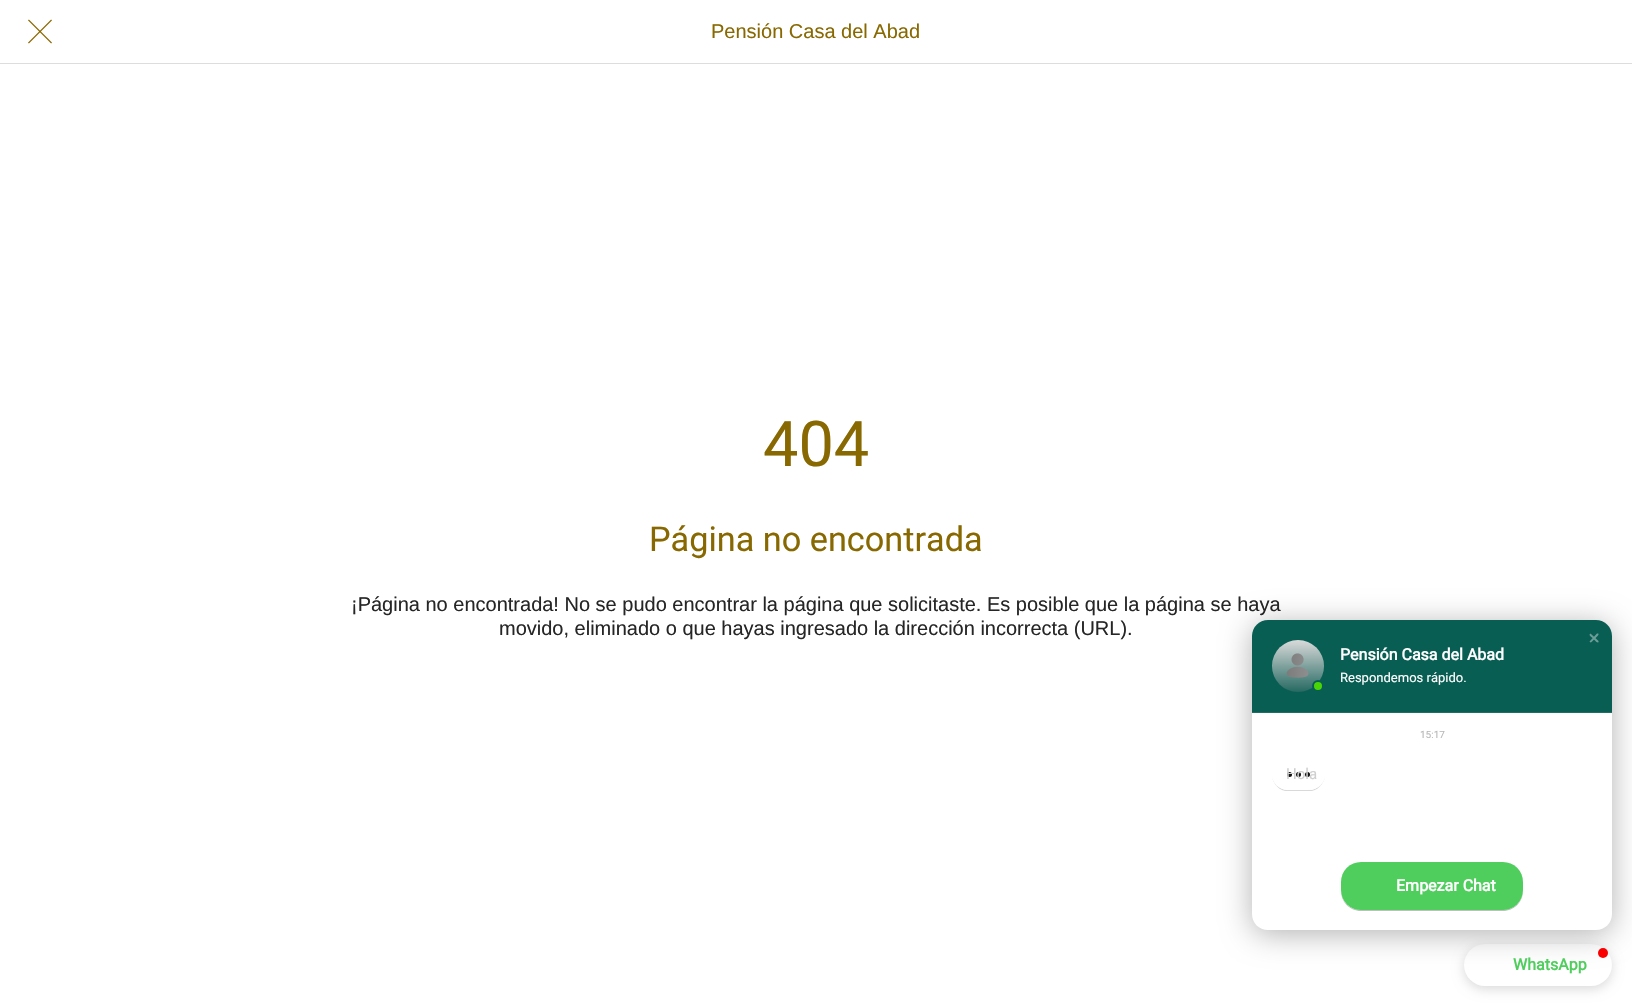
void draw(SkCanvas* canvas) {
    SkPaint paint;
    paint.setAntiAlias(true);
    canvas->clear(0xFFFFFFFF);
    paint.setColor(0xFFDDDDDD);
    canvas->drawRect(SkRect::MakeXYWH(0, 63, 1632, 1), paint);
    canvas->drawImageRect(SkImages::DeferredFromEncodedData(SkData::MakeFromFileName("img1.png")), SkRect::MakeXYWH(28, 19, 24, 25), SkSamplingOptions());
    SkFont font1(fontMgr->matchFamilyStyle("Liberation Sans", SkFontStyle::Normal()), 20);
    font1.setSubpixel(true);
    paint.setColor(0xFF886800);
    canvas->drawString("Pensión Casa del Abad", 711, 38, font1, paint);
    SkFont font2(fontMgr->matchFamilyStyle("Roboto", SkFontStyle::Normal()), 63);
    font2.setSubpixel(true);
    canvas->drawString("404", 763, 466, font2, paint);
    SkFont font3(fontMgr->matchFamilyStyle("Roboto", SkFontStyle::Normal()), 34.25f);
    font3.setSubpixel(true);
    canvas->drawString("Página no encontrada", 649, 551, font3, paint);
    paint.setColor(0xFF262626);
    canvas->drawString("¡Página no encontrada! No se pudo encontrar la página que solicitaste. Es posible que la página se haya", 351, 611, font1, paint);
    canvas->drawString("movido, eliminado o que hayas ingresado la dirección incorrecta (URL).", 499, 635, font1, paint);
    paint.setColor(0x26000000);
    paint.setMaskFilter(SkMaskFilter::MakeBlur(kNormal_SkBlurStyle, 6));
    canvas->drawRoundRect(SkRect::MakeXYWH(1464, 947, 148, 42), 21, 21, paint);
    paint.setMaskFilter(nullptr);
    paint.setColor(0xFFFFFFFF);
    canvas->drawRoundRect(SkRect::MakeXYWH(1464, 944, 148, 42), 21, 21, paint);
    paint.setColor(0xFFFF0000);
    canvas->drawCircle(1603, 953, 5, paint);
    canvas->save();
    canvas->clipPath(SkPathBuilder(SkPathFillType::kEvenOdd).moveTo(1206, 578).lineTo(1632, 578).lineTo(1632, 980).lineTo(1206, 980).close().moveTo(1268, 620).lineTo(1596, 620).cubicTo(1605, 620, 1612, 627, 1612, 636).lineTo(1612, 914).cubicTo(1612, 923, 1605, 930, 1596, 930).lineTo(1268, 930).cubicTo(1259, 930, 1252, 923, 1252, 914).lineTo(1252, 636).cubicTo(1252, 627, 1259, 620, 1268, 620).close().detach(), true);
    paint.setColor(0x4D000000);
    paint.setMaskFilter(SkMaskFilter::MakeBlur(kNormal_SkBlurStyle, 15));
    canvas->drawRoundRect(SkRect::MakeXYWH(1252, 624, 360, 310), 16, 16, paint);
    paint.setMaskFilter(nullptr);
    canvas->restore();
    paint.setColor(0xFF095E54);
    canvas->drawPath(SkPathBuilder().moveTo(1268, 620).lineTo(1596, 620).cubicTo(1605, 620, 1612, 627, 1612, 636).lineTo(1612, 713).lineTo(1252, 713).lineTo(1252, 636).cubicTo(1252, 627, 1259, 620, 1268, 620).close().detach(), paint);
    paint.setColor(0xFF6B9E98);
    canvas->drawPath(SkPathBuilder().moveTo(1591, 634).lineTo(1598.5f, 641).lineTo(1598.5f, 642).cubicTo(1598, 643.5f, 1596, 641.5f, 1595.5f, 641).lineTo(1592, 637.5f).cubicTo(1591.5f, 637, 1588.5f, 635, 1590, 634).cubicTo(1590, 633.5f, 1591, 633.5f, 1591, 634).close().detach(), paint);
    canvas->drawPath(SkPathBuilder().moveTo(1590, 641).lineTo(1597, 633.5f).lineTo(1598, 633.5f).cubicTo(1599.5f, 634, 1597.5f, 636, 1597, 636.5f).lineTo(1593.5f, 640).cubicTo(1593, 640.5f, 1591, 643.5f, 1590, 642).cubicTo(1589.5f, 642, 1589.5f, 641, 1590, 641).close().detach(), paint);
    paint.setColor(0xFF226E65);
    canvas->drawRect(SkRect::MakeXYWH(1252, 712, 360, 1), paint);
    {
        const SkColor colors[] = {0xFFE5E5E5, 0xFF266E66};
        const float stops[] = {0, 1};
        const SkPoint ends[] = {{1298, 640}, {1298, 692}};
        paint.setShader(SkGradientShader::MakeLinear(ends, colors, stops, 2, SkTileMode::kClamp));
        paint.setAlpha(255);
    }
    canvas->drawCircle(1298, 666, 26, paint);
    canvas->drawImageRect(SkImages::DeferredFromEncodedData(SkData::MakeFromFileName("img2.png")), SkRect::MakeXYWH(1286, 653, 23, 25), SkSamplingOptions());
    paint.setShader(nullptr);
    paint.setColor(0x0D111111);
    canvas->drawPath(SkPathBuilder().moveTo(1298, 640).cubicTo(1332, 640, 1332, 692, 1298, 692).cubicTo(1264, 692, 1264, 640, 1298, 640).close().detach(), paint);
    paint.setColor(0xFF4AD504);
    canvas->drawCircle(1318, 686, 5, paint);
    paint.setStyle(SkPaint::kStroke_Style);
    paint.setStrokeWidth(2);
    paint.setColor(0xFF095E54);
    canvas->drawCircle(1318, 686, 5, paint);
    SkFont font4(fontMgr->matchFamilyStyle("Roboto", SkFontStyle::Bold()), 16);
    font4.setSubpixel(true);
    paint.setStyle(SkPaint::kFill_Style);
    paint.setColor(0xFFFFFFFF);
    canvas->drawString("Pensión Casa del Abad", 1340, 660, font4, paint);
    SkFont font5(fontMgr->matchFamilyStyle("Roboto", SkFontStyle::Normal()), 13);
    font5.setSubpixel(true);
    canvas->drawString("Respondemos rápido.", 1340, 682, font5, paint);
    SkFont font6(fontMgr->matchFamilyStyle("Roboto", SkFontStyle::Normal()), 10);
    font6.setSubpixel(true);
    paint.setColor(0xFFB8B8B8);
    canvas->drawString("15:17", 1420, 738, font6, paint);
    paint.setColor(0xFFD9D9D9);
    canvas->drawPath(SkPathBuilder().moveTo(1272, 774).cubicTo(1272, 782, 1277, 789, 1285, 791).lineTo(1312, 791).cubicTo(1320, 789, 1325, 782, 1325, 774).cubicTo(1325, 783, 1318, 790, 1309, 790).lineTo(1288, 790).cubicTo(1279, 790, 1272, 783, 1272, 774).close().detach(), paint);
    paint.setColor(0xFFFFFFFF);
    canvas->drawRoundRect(SkRect::MakeXYWH(1272, 758, 53, 32), 16, 16, paint);
    paint.setColor(0xFF111111);
    canvas->drawCircle(1289.5f, 774.5f, 2.5f, paint);
    canvas->drawCircle(1298.5f, 774.5f, 2.5f, paint);
    canvas->drawCircle(1307.5f, 774.5f, 2.5f, paint);
    SkFont font7(fontMgr->matchFamilyStyle("Roboto", SkFontStyle::Normal()), 15);
    font7.setSubpixel(true);
    paint.setColor(0xFFCFCFCF);
    canvas->drawString("Hola", 1286, 779, font7, paint);
    paint.setColor(0xFFBFBFBF);
    canvas->drawPath(SkPathBuilder().moveTo(1341, 890).lineTo(1341, 891).cubicTo(1341, 902, 1350, 911, 1361, 911).lineTo(1503, 911).cubicTo(1514, 911, 1523, 902, 1523, 891).lineTo(1523, 890).cubicTo(1523, 901, 1514, 910, 1503, 910).lineTo(1361, 910).cubicTo(1350, 910, 1341, 901, 1341, 890).close().detach(), paint);
    paint.setColor(0xFF4FCE5D);
    canvas->drawRoundRect(SkRect::MakeXYWH(1341, 862, 182, 48), 20, 20, paint);
    paint.setColor(0xFFFFFFFF);
    canvas->drawString("Empezar Chat", 1396, 891, font4, paint);
    paint.setColor(0xFF4FCE5D);
    canvas->drawString("WhatsApp", 1513, 970, font4, paint);
}
